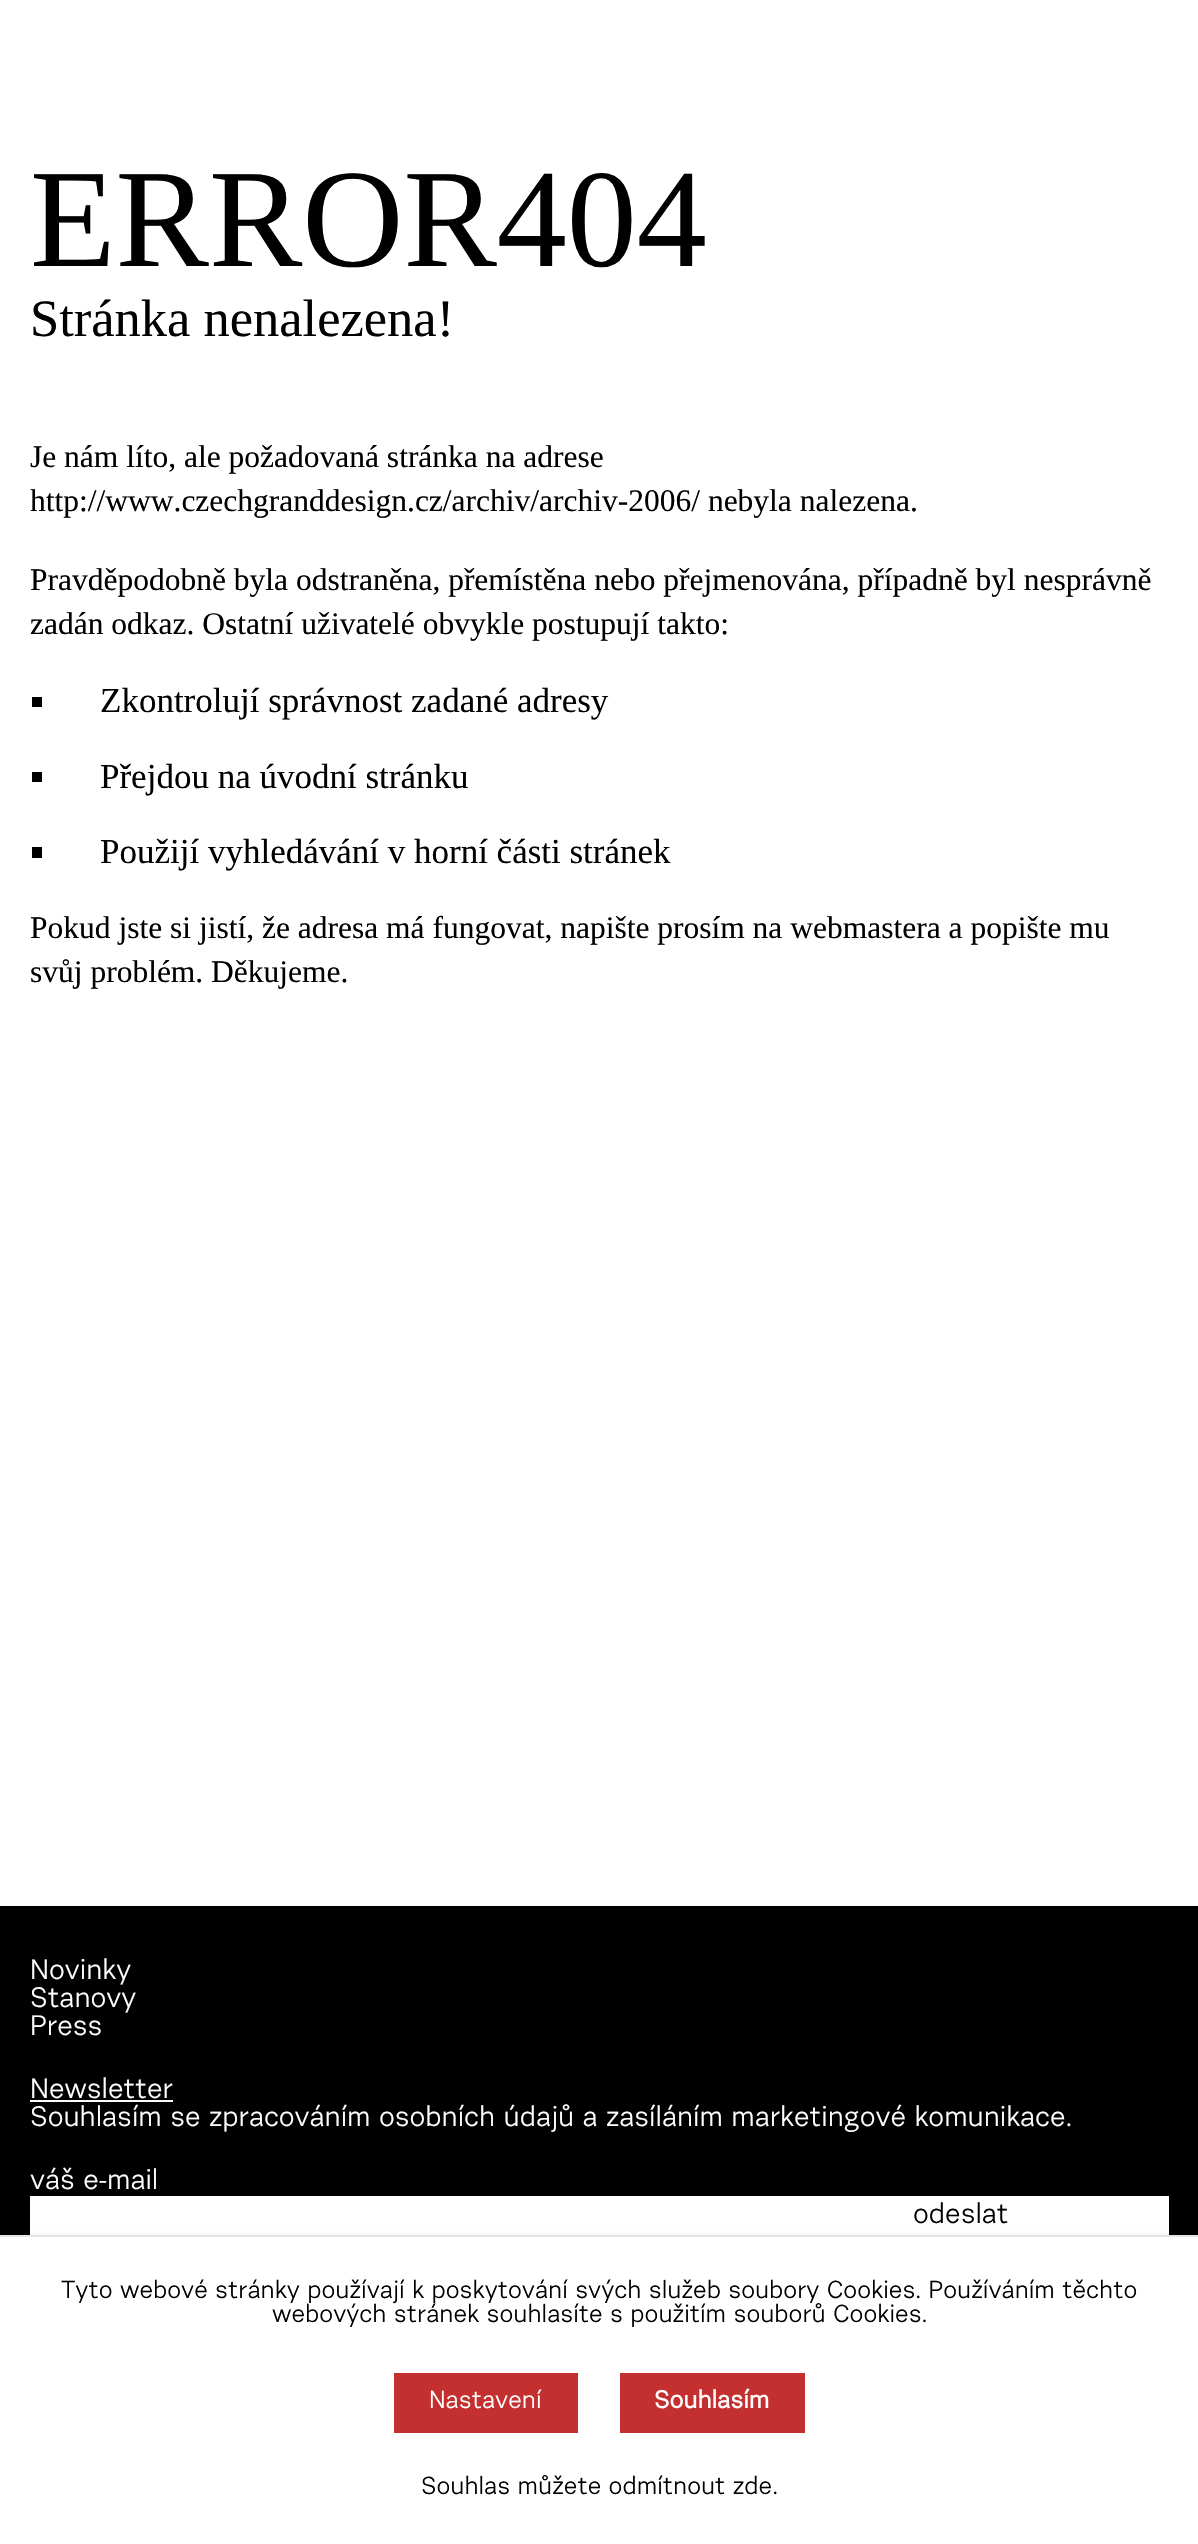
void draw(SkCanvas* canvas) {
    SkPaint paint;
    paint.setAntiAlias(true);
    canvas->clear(0xFFFFFFFF);
    SkFont font1(fontMgr->matchFamilyStyle("Liberation Serif", SkFontStyle::Normal()), 140);
    font1.setSubpixel(true);
    paint.setColor(0xFF000000);
    canvas->drawString("ERROR404", 30, 266, font1, paint);
    SkFont font2(fontMgr->matchFamilyStyle("Liberation Serif", SkFontStyle::Normal()), 52.5f);
    font2.setSubpixel(true);
    canvas->drawString("Stránka nenalezena!", 30, 336, font2, paint);
    SkFont font3(fontMgr->matchFamilyStyle("Liberation Serif", SkFontStyle::Normal()), 31.5f);
    font3.setSubpixel(true);
    canvas->drawString("Je nám líto, ale požadovaná stránka na adrese", 30, 467, font3, paint);
    canvas->drawString("http://www.czechgranddesign.cz/archiv/archiv-2006/ nebyla nalezena.", 30, 511, font3, paint);
    canvas->drawString("Pravděpodobně byla odstraněna, přemístěna nebo přejmenována, případně byl nesprávně", 30, 590, font3, paint);
    canvas->drawString("zadán odkaz. Ostatní uživatelé obvykle postupují takto:", 30, 634, font3, paint);
    canvas->drawRect(SkRect::MakeXYWH(32, 697, 10, 10), paint);
    SkFont font4(fontMgr->matchFamilyStyle("Liberation Serif", SkFontStyle::Normal()), 35);
    font4.setSubpixel(true);
    canvas->drawString("Zkontrolují správnost zadané adresy", 100, 712, font4, paint);
    canvas->drawRect(SkRect::MakeXYWH(32, 772, 10, 10), paint);
    canvas->drawString("Přejdou na úvodní stránku", 100, 788, font4, paint);
    canvas->drawRect(SkRect::MakeXYWH(32, 847, 10, 11), paint);
    canvas->drawString("Použijí vyhledávání v horní části stránek", 100, 863, font4, paint);
    canvas->drawString("Pokud jste si jistí, že adresa má fungovat, napište prosím na webmastera a popište mu", 30, 938, font3, paint);
    canvas->drawString("svůj problém. Děkujeme.", 30, 982, font3, paint);
    canvas->drawRect(SkRect::MakeXYWH(0, 1906, 1198, 329), paint);
    SkFont font5(fontMgr->matchFamilyStyle("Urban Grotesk", SkFontStyle::Normal()), 28);
    font5.setSubpixel(true);
    paint.setColor(0xFFFFFFFF);
    canvas->drawString("Novinky", 30, 1979, font5, paint);
    canvas->drawString("Stanovy", 30, 2007, font5, paint);
    canvas->drawString("Press", 30, 2035, font5, paint);
    canvas->drawString("Newsletter", 30, 2098, font5, paint);
    canvas->drawRect(SkRect::MakeXYWH(30, 2100, 143, 2), paint);
    canvas->drawString("Souhlasím se zpracováním osobních údajů a zasíláním marketingové komunikace.", 30, 2126, font5, paint);
    canvas->drawString("váš e-mail", 30, 2189, font5, paint);
    canvas->drawRect(SkRect::MakeXYWH(30, 2196, 1139, 39), paint);
    paint.setColor(0xFF000000);
    canvas->drawString("odeslat", 913, 2223, font5, paint);
    paint.setColor(0x33000000);
    paint.setMaskFilter(SkMaskFilter::MakeBlur(kNormal_SkBlurStyle, 3.5f));
    canvas->drawRect(SkRect::MakeXYWH(0, 2238, 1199, 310), paint);
    paint.setMaskFilter(nullptr);
    paint.setColor(0xFFFFFFFF);
    canvas->drawRect(SkRect::MakeXYWH(0, 2237, 1198, 307), paint);
    paint.setColor(0xFFE5E5E5);
    canvas->drawRect(SkRect::MakeXYWH(0, 2235, 1198, 2), paint);
    SkFont font6(fontMgr->matchFamilyStyle("Urban Grotesk", SkFontStyle::Normal()), 24.5f);
    font6.setSubpixel(true);
    paint.setColor(0xFF000000);
    canvas->drawString("Tyto webové stránky používají k poskytování svých služeb soubory Cookies. Používáním těchto", 61, 2298, font6, paint);
    canvas->drawString("webových stránek souhlasíte s použitím souborů Cookies.", 272, 2322, font6, paint);
    paint.setColor(0xFFC42F2F);
    canvas->drawRect(SkRect::MakeXYWH(394, 2373, 184, 60), paint);
    paint.setColor(0xFFFFFFFF);
    canvas->drawString("Nastavení", 429, 2408, font6, paint);
    paint.setColor(0xFFC42F2F);
    canvas->drawRect(SkRect::MakeXYWH(620, 2373, 185, 60), paint);
    SkFont font7(fontMgr->matchFamilyStyle("Urban Grotesk", SkFontStyle::Bold()), 24.5f);
    font7.setSubpixel(true);
    paint.setColor(0xFFFFFFFF);
    canvas->drawString("Souhlasím", 654, 2408, font7, paint);
    paint.setColor(0xFF000000);
    canvas->drawString("Souhlas můžete odmítnout zde.", 421, 2494, font6, paint);
}
